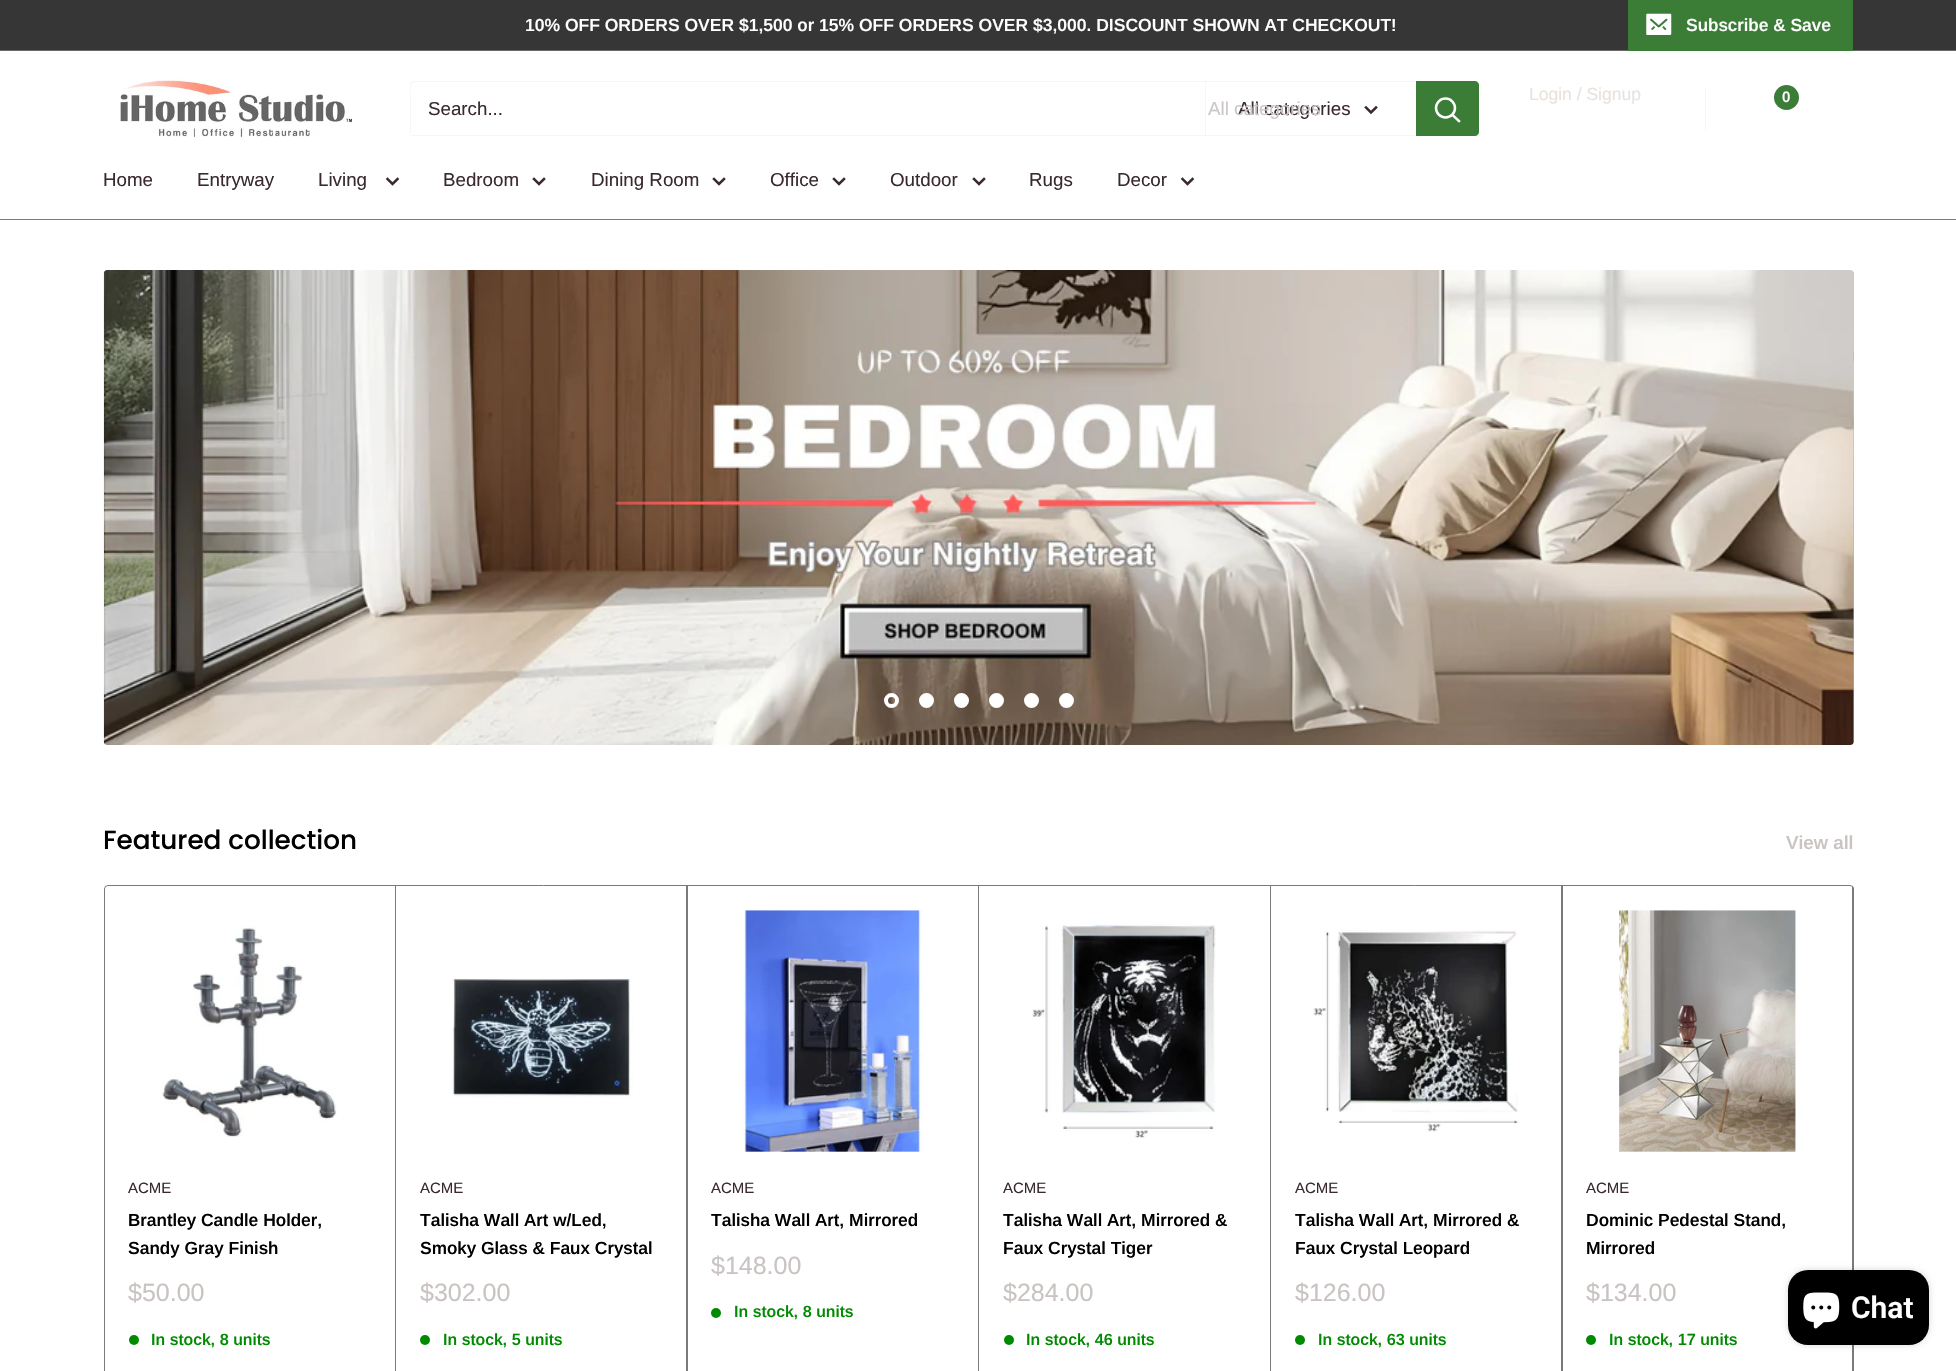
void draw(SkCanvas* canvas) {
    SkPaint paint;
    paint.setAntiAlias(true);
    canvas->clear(0xFFFFFFFF);
    paint.setColor(0xFF373636);
    canvas->drawRect(SkRect::MakeXYWH(0, 0, 1956, 50), paint);
    paint.setColor(0xFF6C6A68);
    canvas->drawRect(SkRect::MakeXYWH(0, 50, 1956, 1), paint);
    SkFont font1(fontMgr->matchFamilyStyle("Arimo", SkFontStyle(600, SkFontStyle::kNormal_Width, SkFontStyle::kUpright_Slant)), 17.5f);
    font1.setSubpixel(true);
    paint.setColor(0xFFFFFFFF);
    canvas->drawString("10% OFF ORDERS OVER $1,500 or 15% OFF ORDERS OVER $3,000. DISCOUNT SHOWN AT CHECKOUT!", 525, 31, font1, paint);
    paint.setColor(0xFF3B7D37);
    canvas->drawPath(SkPathBuilder().moveTo(1628, 50).lineTo(1628, 51).lineTo(1853, 51).lineTo(1853, 1).lineTo(1852, 1).lineTo(1852, 50).close().detach(), paint);
    canvas->drawRect(SkRect::MakeXYWH(1628, 0, 225, 50), paint);
    canvas->drawImageRect(SkImages::DeferredFromEncodedData(SkData::MakeFromFileName("img1.png")), SkRect::MakeXYWH(1646, 13, 26, 22), SkSamplingOptions());
    paint.setColor(0xFFFFFFFF);
    canvas->drawString("Subscribe & Save", 1686, 31, font1, paint);
    canvas->drawImageRect(SkImages::DeferredFromEncodedData(SkData::MakeFromFileName("img2.png")), SkRect::MakeXYWH(120, 79, 232, 58), SkSamplingOptions());
    SkFont font2(fontMgr->matchFamilyStyle("Arimo", SkFontStyle::Normal()), 17.5f);
    font2.setSubpixel(true);
    paint.setColor(0xFFE9E2DD);
    canvas->drawString("Login / Signup", 1529, 100, font2, paint);
    paint.setColor(0xFFF8F6F5);
    canvas->drawRect(SkRect::MakeXYWH(1705, 88, 1, 42), paint);
    paint.setColor(0xFF3B7D37);
    canvas->drawCircle(1786.5f, 97.5f, 12.5f, paint);
    SkFont font3(fontMgr->matchFamilyStyle("Arimo", SkFontStyle(600, SkFontStyle::kNormal_Width, SkFontStyle::kUpright_Slant)), 15);
    font3.setSubpixel(true);
    paint.setColor(0xFFFFFFFF);
    canvas->drawString("0", 1782, 102, font3, paint);
    paint.setColor(0xFFF8F6F5);
    canvas->drawPath(SkPathBuilder().moveTo(411, 135).lineTo(413, 136).lineTo(1475, 136).cubicTo(1477, 136, 1479, 135, 1479, 133).lineTo(1479, 84).lineTo(1477, 82).lineTo(1478, 84).lineTo(1478, 131).cubicTo(1478, 133, 1476, 135, 1474, 135).close().detach(), paint);
    paint.setColor(0x4DE9E2DD);
    canvas->drawPath(SkPathBuilder().moveTo(415, 82).lineTo(1476, 82).lineTo(1478, 83).cubicTo(1478, 82, 1476, 81, 1475, 81).lineTo(414, 81).cubicTo(412, 81, 410, 83, 410, 85).lineTo(410, 132).cubicTo(410, 133, 410, 134, 411, 135).lineTo(411, 94).cubicTo(411, 92, 409, 82, 415, 82).close().detach(), paint);
    SkFont font4(fontMgr->matchFamilyStyle("Arimo", SkFontStyle::Normal()), 18.75f);
    font4.setSubpixel(true);
    paint.setColor(0xFF3A2A2F);
    canvas->drawString("Search...", 428, 115, font4, paint);
    paint.setColor(0x4DE9E2DD);
    canvas->drawRect(SkRect::MakeXYWH(1205, 81, 1, 55), paint);
    paint.setColor(0xFF3A2A2F);
    canvas->drawString("All categories", 1238, 115, font4, paint);
    paint.setColor(0xFFCCC8C9);
    canvas->drawString("All categories", 1208, 115, font4, paint);
    paint.setStyle(SkPaint::kStroke_Style);
    paint.setStrokeWidth(2.5f);
    paint.setStrokeCap(SkPaint::kSquare_Cap);
    paint.setColor(0xFF3A2A2F);
    canvas->drawPath(SkPathBuilder().moveTo(1376, 107.5f).lineTo(1371, 112.5f).lineTo(1366, 107.5f).detach(), paint);
    paint.setStyle(SkPaint::kFill_Style);
    paint.setColor(0xFF3B7D37);
    canvas->drawPath(SkPathBuilder().moveTo(1416, 81).lineTo(1475, 81).cubicTo(1477, 81, 1479, 83, 1479, 85).lineTo(1479, 132).cubicTo(1479, 134, 1477, 136, 1475, 136).lineTo(1416, 136).close().detach(), paint);
    paint.setStyle(SkPaint::kStroke_Style);
    paint.setColor(0xFFFFFFFF);
    canvas->drawPath(SkPathBuilder().moveTo(1459, 121).lineTo(1452.5f, 115).detach(), paint);
    paint.setStrokeCap(SkPaint::kButt_Cap);
    canvas->drawCircle(1445.5f, 108, 9.5f, paint);
    paint.setStyle(SkPaint::kFill_Style);
    paint.setColor(0xFF7C7A79);
    canvas->drawRect(SkRect::MakeXYWH(0, 219, 1956, 1), paint);
    paint.setColor(0xFF3A2A2F);
    canvas->drawString("Home", 103, 186, font4, paint);
    canvas->drawString("Entryway", 197, 186, font4, paint);
    canvas->drawString("Living", 318, 186, font4, paint);
    paint.setStyle(SkPaint::kStroke_Style);
    paint.setStrokeCap(SkPaint::kSquare_Cap);
    canvas->drawPath(SkPathBuilder().moveTo(397.5f, 179).lineTo(392.5f, 184).lineTo(387.5f, 179).detach(), paint);
    paint.setStyle(SkPaint::kFill_Style);
    canvas->drawString("Bedroom", 443, 186, font4, paint);
    paint.setStyle(SkPaint::kStroke_Style);
    canvas->drawPath(SkPathBuilder().moveTo(544, 179).lineTo(539, 184).lineTo(534, 179).detach(), paint);
    paint.setStyle(SkPaint::kFill_Style);
    canvas->drawString("Dining Room", 591, 186, font4, paint);
    paint.setStyle(SkPaint::kStroke_Style);
    canvas->drawPath(SkPathBuilder().moveTo(724, 179).lineTo(719, 184).lineTo(714, 179).detach(), paint);
    paint.setStyle(SkPaint::kFill_Style);
    canvas->drawString("Office", 770, 186, font4, paint);
    paint.setStyle(SkPaint::kStroke_Style);
    canvas->drawPath(SkPathBuilder().moveTo(844, 179).lineTo(839, 184).lineTo(834, 179).detach(), paint);
    paint.setStyle(SkPaint::kFill_Style);
    canvas->drawString("Outdoor", 890, 186, font4, paint);
    paint.setStyle(SkPaint::kStroke_Style);
    canvas->drawPath(SkPathBuilder().moveTo(984, 179).lineTo(979, 184).lineTo(974, 179).detach(), paint);
    paint.setStyle(SkPaint::kFill_Style);
    canvas->drawString("Rugs", 1029, 186, font4, paint);
    canvas->drawString("Decor", 1117, 186, font4, paint);
    paint.setStyle(SkPaint::kStroke_Style);
    canvas->drawPath(SkPathBuilder().moveTo(1192.5f, 179).lineTo(1187.5f, 184).lineTo(1182.5f, 179).detach(), paint);
    canvas->drawImageRect(SkImages::DeferredFromEncodedData(SkData::MakeFromFileName("img3.png")), SkRect::MakeXYWH(103, 270, 1751, 475), SkSamplingOptions());
    canvas->drawImageRect(SkImages::DeferredFromEncodedData(SkData::MakeFromFileName("img4.png")), SkRect::MakeXYWH(1853, 271, 1, 473), SkSamplingOptions());
    paint.setStrokeWidth(4);
    paint.setStrokeCap(SkPaint::kButt_Cap);
    paint.setColor(0xFFFFFFFF);
    canvas->drawCircle(891.5f, 700.5f, 5.5f, paint);
    paint.setStyle(SkPaint::kFill_Style);
    canvas->drawCircle(926.5f, 700.5f, 5.5f, paint);
    paint.setStyle(SkPaint::kStroke_Style);
    canvas->drawCircle(926.5f, 700.5f, 5.5f, paint);
    paint.setStyle(SkPaint::kFill_Style);
    canvas->drawCircle(961.5f, 700.5f, 5.5f, paint);
    paint.setStyle(SkPaint::kStroke_Style);
    canvas->drawCircle(961.5f, 700.5f, 5.5f, paint);
    paint.setStyle(SkPaint::kFill_Style);
    canvas->drawCircle(996.5f, 700.5f, 5.5f, paint);
    paint.setStyle(SkPaint::kStroke_Style);
    canvas->drawCircle(996.5f, 700.5f, 5.5f, paint);
    paint.setStyle(SkPaint::kFill_Style);
    canvas->drawCircle(1031.5f, 700.5f, 5.5f, paint);
    paint.setStyle(SkPaint::kStroke_Style);
    canvas->drawCircle(1031.5f, 700.5f, 5.5f, paint);
    paint.setStyle(SkPaint::kFill_Style);
    canvas->drawCircle(1066.5f, 700.5f, 5.5f, paint);
    paint.setStyle(SkPaint::kStroke_Style);
    canvas->drawCircle(1066.5f, 700.5f, 5.5f, paint);
    SkFont font5(fontMgr->matchFamilyStyle("Poppins", SkFontStyle(500, SkFontStyle::kNormal_Width, SkFontStyle::kUpright_Slant)), 26.25f);
    font5.setSubpixel(true);
    paint.setStyle(SkPaint::kFill_Style);
    paint.setColor(0xFF000000);
    canvas->drawString("Featured collection", 103, 849, font5, paint);
    SkFont font6(fontMgr->matchFamilyStyle("Arimo", SkFontStyle(600, SkFontStyle::kNormal_Width, SkFontStyle::kUpright_Slant)), 18.75f);
    font6.setSubpixel(true);
    paint.setColor(0xFFC9C3C1);
    canvas->drawString("View all", 1786, 849, font6, paint);
    canvas->drawImageRect(SkImages::DeferredFromEncodedData(SkData::MakeFromFileName("img5.png")), SkRect::MakeXYWH(162, 926, 176, 211), SkSamplingOptions());
    paint.setColor(0xFF7C7A79);
    canvas->drawRect(SkRect::MakeXYWH(395, 885, 1, 486), paint);
    paint.setColor(0xFF008A00);
    canvas->drawCircle(134, 1340, 5, paint);
    canvas->drawImageRect(SkImages::DeferredFromEncodedData(SkData::MakeFromFileName("img6.png")), SkRect::MakeXYWH(452, 978, 181, 120), SkSamplingOptions());
    paint.setColor(0xFF7C7A79);
    canvas->drawRect(SkRect::MakeXYWH(686, 885, 2, 486), paint);
    paint.setColor(0xFF008A00);
    canvas->drawCircle(425, 1340, 5, paint);
    canvas->drawImageRect(SkImages::DeferredFromEncodedData(SkData::MakeFromFileName("img7.png")), SkRect::MakeXYWH(741, 910, 183, 242), SkSamplingOptions());
    paint.setColor(0xFF7C7A79);
    canvas->drawRect(SkRect::MakeXYWH(978, 885, 1, 486), paint);
    paint.setColor(0xFF008A00);
    canvas->drawCircle(716, 1313, 5, paint);
    canvas->drawImageRect(SkImages::DeferredFromEncodedData(SkData::MakeFromFileName("img8.png")), SkRect::MakeXYWH(1032, 924, 184, 214), SkSamplingOptions());
    paint.setColor(0xFF7C7A79);
    canvas->drawRect(SkRect::MakeXYWH(1270, 885, 1, 486), paint);
    paint.setColor(0xFF008A00);
    canvas->drawCircle(1009, 1340, 5, paint);
    canvas->drawImageRect(SkImages::DeferredFromEncodedData(SkData::MakeFromFileName("img9.png")), SkRect::MakeXYWH(1313, 930, 205, 202), SkSamplingOptions());
    paint.setColor(0xFF7C7A79);
    canvas->drawRect(SkRect::MakeXYWH(1561, 885, 2, 486), paint);
    paint.setColor(0xFF008A00);
    canvas->drawCircle(1300, 1340, 5, paint);
    canvas->drawImageRect(SkImages::DeferredFromEncodedData(SkData::MakeFromFileName("img10.png")), SkRect::MakeXYWH(1619, 910, 177, 242), SkSamplingOptions());
    paint.setColor(0xFF7C7A79);
    canvas->drawPath(SkPathBuilder().moveTo(1852, 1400).cubicTo(1853, 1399, 1854, 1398, 1854, 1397).lineTo(1854, 889).cubicTo(1854, 888, 1853, 887, 1852, 886).close().detach(), paint);
    paint.setColor(0xFF008A00);
    canvas->drawCircle(1591, 1340, 5, paint);
    paint.setStyle(SkPaint::kStroke_Style);
    paint.setStrokeWidth(1);
    paint.setColor(0xFF7C7A79);
    canvas->drawRoundRect(SkRect::MakeXYWH(104.5f, 885.5f, 1749, 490), 3.5f, 3.5f, paint);
    SkFont font7(fontMgr->matchFamilyStyle("Arimo", SkFontStyle::Normal()), 15);
    font7.setSubpixel(true);
    paint.setStyle(SkPaint::kFill_Style);
    paint.setColor(0xFF3A2A2F);
    canvas->drawString("ACME", 128, 1193, font7, paint);
    paint.setColor(0xFF000000);
    canvas->drawString("Brantley Candle Holder,", 128, 1226, font1, paint);
    canvas->drawString("Sandy Gray Finish", 128, 1254, font1, paint);
    SkFont font8(fontMgr->matchFamilyStyle("Arimo", SkFontStyle::Normal()), 25);
    font8.setSubpixel(true);
    paint.setColor(0xFFC9C3C1);
    canvas->drawString("$50.00", 128, 1301, font8, paint);
    SkFont font9(fontMgr->matchFamilyStyle("Arimo", SkFontStyle(600, SkFontStyle::kNormal_Width, SkFontStyle::kUpright_Slant)), 16.25f);
    font9.setSubpixel(true);
    paint.setColor(0xFF008A00);
    canvas->drawString("In stock, 8 units", 151, 1345, font9, paint);
    paint.setColor(0xFF3A2A2F);
    canvas->drawString("ACME", 420, 1193, font7, paint);
    paint.setColor(0xFF000000);
    canvas->drawString("Talisha Wall Art w/Led,", 420, 1226, font1, paint);
    canvas->drawString("Smoky Glass & Faux Crystal", 420, 1254, font1, paint);
    paint.setColor(0xFFC9C3C1);
    canvas->drawString("$302.00", 420, 1301, font8, paint);
    paint.setColor(0xFF008A00);
    canvas->drawString("In stock, 5 units", 443, 1345, font9, paint);
    paint.setColor(0xFF3A2A2F);
    canvas->drawString("ACME", 711, 1193, font7, paint);
    paint.setColor(0xFF000000);
    canvas->drawString("Talisha Wall Art, Mirrored", 711, 1226, font1, paint);
    paint.setColor(0xFFC9C3C1);
    canvas->drawString("$148.00", 711, 1274, font8, paint);
    paint.setColor(0xFF008A00);
    canvas->drawString("In stock, 8 units", 734, 1317, font9, paint);
    paint.setColor(0xFF3A2A2F);
    canvas->drawString("ACME", 1003, 1193, font7, paint);
    paint.setColor(0xFF000000);
    canvas->drawString("Talisha Wall Art, Mirrored &", 1003, 1226, font1, paint);
    canvas->drawString("Faux Crystal Tiger", 1003, 1254, font1, paint);
    paint.setColor(0xFFC9C3C1);
    canvas->drawString("$284.00", 1003, 1301, font8, paint);
    paint.setColor(0xFF008A00);
    canvas->drawString("In stock, 46 units", 1026, 1345, font9, paint);
    paint.setColor(0xFF3A2A2F);
    canvas->drawString("ACME", 1295, 1193, font7, paint);
    paint.setColor(0xFF000000);
    canvas->drawString("Talisha Wall Art, Mirrored &", 1295, 1226, font1, paint);
    canvas->drawString("Faux Crystal Leopard", 1295, 1254, font1, paint);
    paint.setColor(0xFFC9C3C1);
    canvas->drawString("$126.00", 1295, 1301, font8, paint);
    paint.setColor(0xFF008A00);
    canvas->drawString("In stock, 63 units", 1318, 1345, font9, paint);
    paint.setColor(0xFF3A2A2F);
    canvas->drawString("ACME", 1586, 1193, font7, paint);
    paint.setColor(0xFF000000);
    canvas->drawString("Dominic Pedestal Stand,", 1586, 1226, font1, paint);
    canvas->drawString("Mirrored", 1586, 1254, font1, paint);
    paint.setColor(0xFFC9C3C1);
    canvas->drawString("$134.00", 1586, 1301, font8, paint);
    paint.setColor(0xFF008A00);
    canvas->drawString("In stock, 17 units", 1609, 1345, font9, paint);
    paint.setColor(0x26000000);
    paint.setMaskFilter(SkMaskFilter::MakeBlur(kNormal_SkBlurStyle, 3));
    canvas->drawRoundRect(SkRect::MakeXYWH(1788, 1270, 141, 75), 20, 20, paint);
    paint.setMaskFilter(nullptr);
    paint.setColor(0xFF000000);
    canvas->drawRoundRect(SkRect::MakeXYWH(1788, 1270, 141, 75), 20, 20, paint);
    canvas->drawImageRect(SkImages::DeferredFromEncodedData(SkData::MakeFromFileName("img11.png")), SkRect::MakeXYWH(1803, 1292, 37, 37), SkSamplingOptions());
    SkFont font10(fontMgr->matchFamilyStyle("Roboto", SkFontStyle(600, SkFontStyle::kNormal_Width, SkFontStyle::kUpright_Slant)), 30);
    font10.setSubpixel(true);
    paint.setColor(0xFFFFFFFF);
    canvas->drawString("Chat", 1851, 1318, font10, paint);
}
